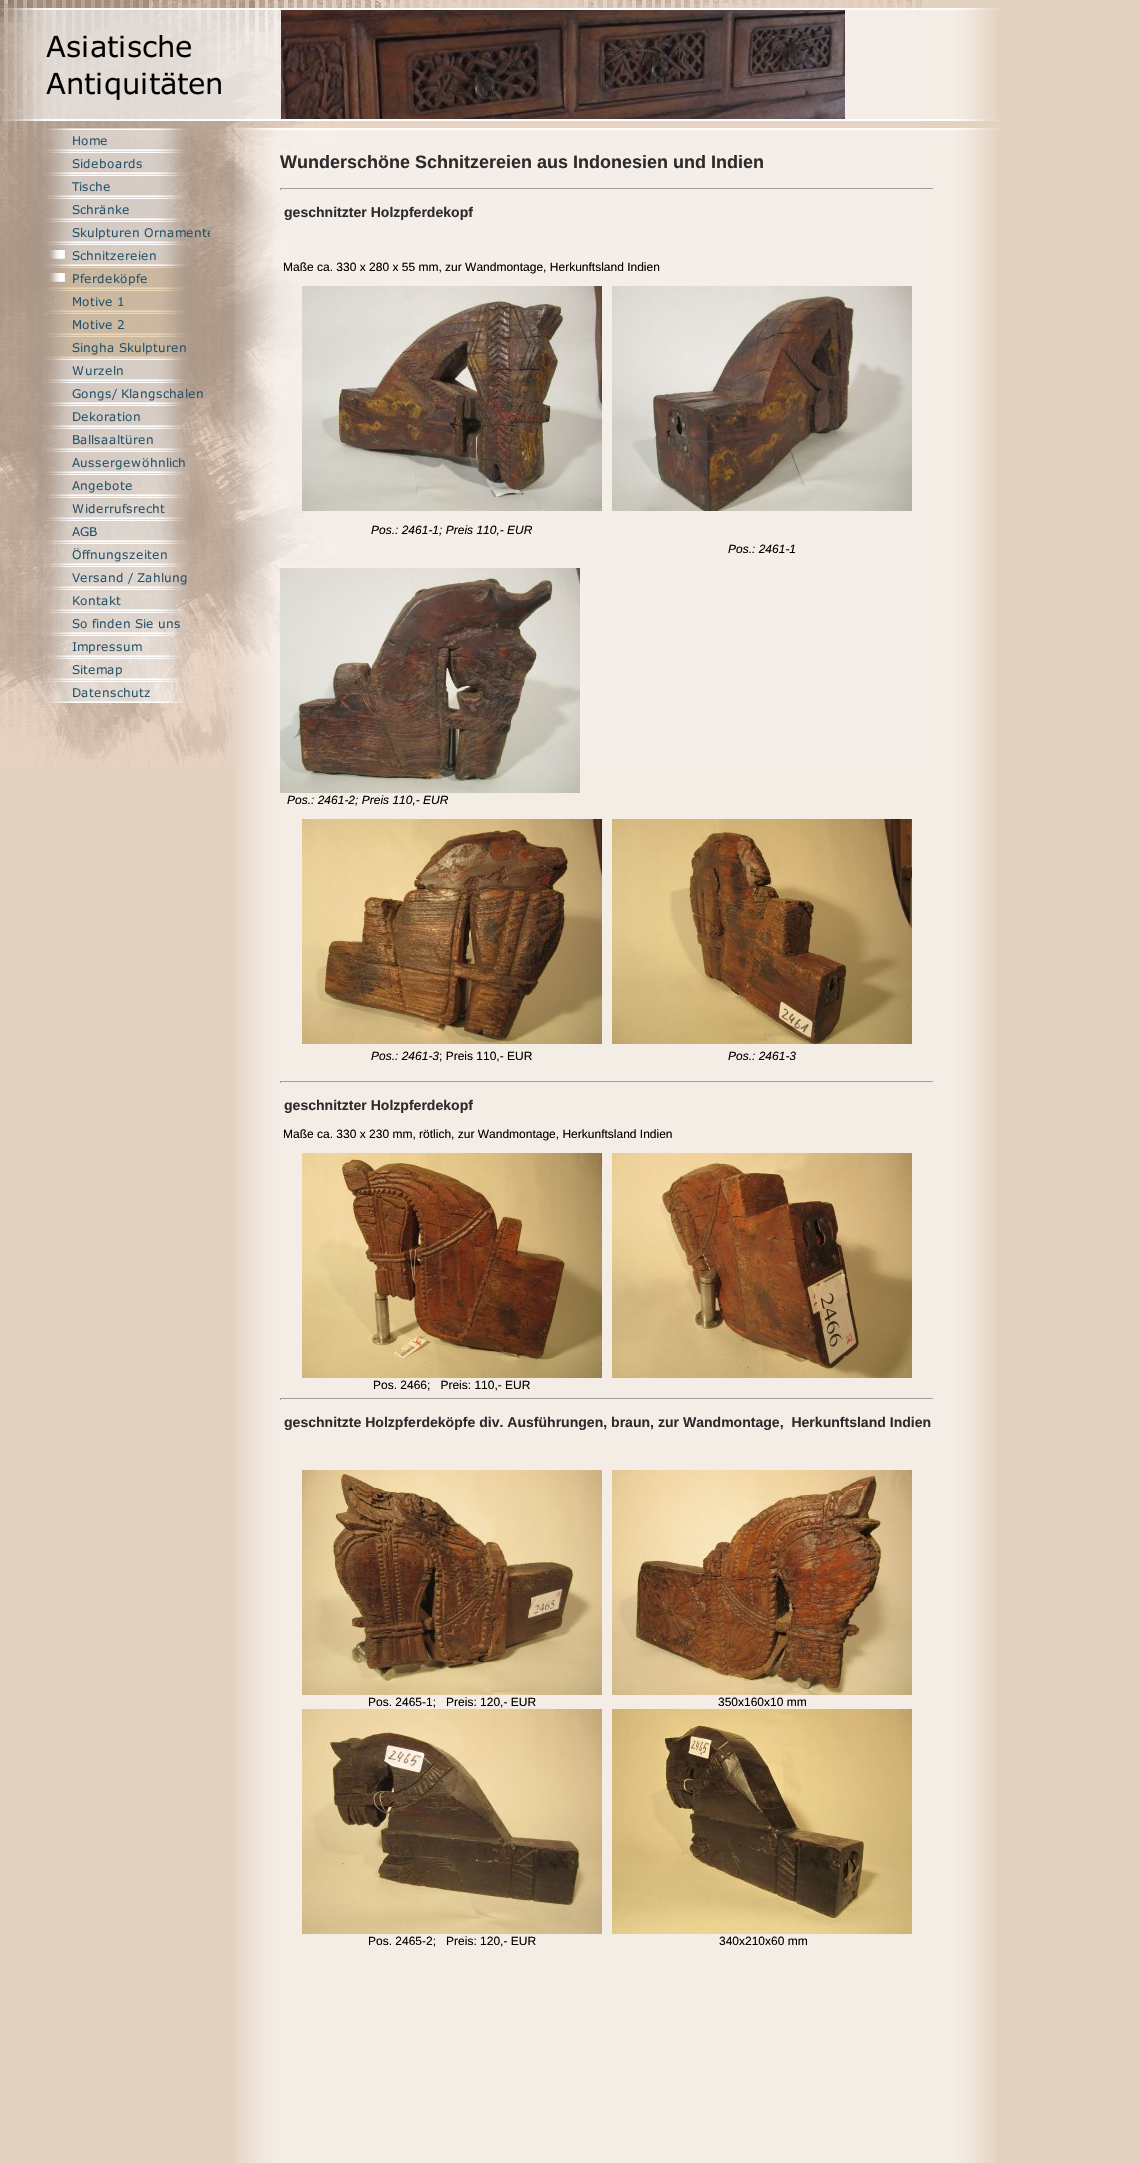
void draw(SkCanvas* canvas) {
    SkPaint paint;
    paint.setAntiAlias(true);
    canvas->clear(0xFFE4D2C1);
    canvas->drawImageRect(SkImages::DeferredFromEncodedData(SkData::MakeFromFileName("img1.png")), SkRect::MakeXYWH(0, 0, 922, 768), SkSamplingOptions());
    canvas->drawImageRect(SkImages::DeferredFromEncodedData(SkData::MakeFromFileName("img2.png")), SkRect::MakeXYWH(0, 8, 46, 2), SkSamplingOptions());
    paint.setColor(0xFFFFFFFF);
    canvas->drawRect(SkRect::MakeXYWH(46, 8, 908, 2), paint);
    canvas->drawImageRect(SkImages::DeferredFromEncodedData(SkData::MakeFromFileName("img3.png")), SkRect::MakeXYWH(954, 8, 46, 2), SkSamplingOptions());
    canvas->drawImageRect(SkImages::DeferredFromEncodedData(SkData::MakeFromFileName("img4.png")), SkRect::MakeXYWH(4, 10, 42, 109), SkSamplingOptions());
    paint.setColor(0x99FFFFFF);
    canvas->drawRect(SkRect::MakeXYWH(46, 10, 908, 109), paint);
    canvas->drawImageRect(SkImages::DeferredFromEncodedData(SkData::MakeFromFileName("img5.png")), SkRect::MakeXYWH(46, 35, 175, 65), SkSamplingOptions());
    canvas->drawImageRect(SkImages::DeferredFromEncodedData(SkData::MakeFromFileName("img6.png")), SkRect::MakeXYWH(281, 10, 564, 109), SkSamplingOptions());
    canvas->drawImageRect(SkImages::DeferredFromEncodedData(SkData::MakeFromFileName("img7.png")), SkRect::MakeXYWH(954, 10, 42, 109), SkSamplingOptions());
    canvas->drawImageRect(SkImages::DeferredFromEncodedData(SkData::MakeFromFileName("img8.png")), SkRect::MakeXYWH(0, 119, 46, 2), SkSamplingOptions());
    paint.setColor(0xFFFFFFFF);
    canvas->drawRect(SkRect::MakeXYWH(46, 119, 908, 2), paint);
    canvas->drawImageRect(SkImages::DeferredFromEncodedData(SkData::MakeFromFileName("img3.png")), SkRect::MakeXYWH(954, 119, 46, 2), SkSamplingOptions());
    canvas->drawImageRect(SkImages::DeferredFromEncodedData(SkData::MakeFromFileName("img9.png")), SkRect::MakeXYWH(42, 128, 148, 23), SkSamplingOptions());
    canvas->drawImageRect(SkImages::DeferredFromEncodedData(SkData::MakeFromFileName("img10.png")), SkRect::MakeXYWH(42, 151, 148, 23), SkSamplingOptions());
    canvas->drawImageRect(SkImages::DeferredFromEncodedData(SkData::MakeFromFileName("img11.png")), SkRect::MakeXYWH(42, 174, 148, 23), SkSamplingOptions());
    canvas->drawImageRect(SkImages::DeferredFromEncodedData(SkData::MakeFromFileName("img12.png")), SkRect::MakeXYWH(42, 197, 148, 23), SkSamplingOptions());
    canvas->drawImageRect(SkImages::DeferredFromEncodedData(SkData::MakeFromFileName("img13.png")), SkRect::MakeXYWH(42, 220, 168, 23), SkSamplingOptions());
    canvas->drawImageRect(SkImages::DeferredFromEncodedData(SkData::MakeFromFileName("img14.png")), SkRect::MakeXYWH(43, 243, 148, 23), SkSamplingOptions());
    canvas->drawImageRect(SkImages::DeferredFromEncodedData(SkData::MakeFromFileName("img15.png")), SkRect::MakeXYWH(44, 266, 144, 23), SkSamplingOptions());
    canvas->drawImageRect(SkImages::DeferredFromEncodedData(SkData::MakeFromFileName("img16.png")), SkRect::MakeXYWH(44, 289, 144, 23), SkSamplingOptions());
    canvas->drawImageRect(SkImages::DeferredFromEncodedData(SkData::MakeFromFileName("img17.png")), SkRect::MakeXYWH(44, 312, 144, 23), SkSamplingOptions());
    canvas->drawImageRect(SkImages::DeferredFromEncodedData(SkData::MakeFromFileName("img18.png")), SkRect::MakeXYWH(44, 335, 144, 23), SkSamplingOptions());
    canvas->drawImageRect(SkImages::DeferredFromEncodedData(SkData::MakeFromFileName("img19.png")), SkRect::MakeXYWH(42, 358, 148, 23), SkSamplingOptions());
    canvas->drawImageRect(SkImages::DeferredFromEncodedData(SkData::MakeFromFileName("img20.png")), SkRect::MakeXYWH(42, 381, 161, 23), SkSamplingOptions());
    canvas->drawImageRect(SkImages::DeferredFromEncodedData(SkData::MakeFromFileName("img21.png")), SkRect::MakeXYWH(42, 404, 147, 23), SkSamplingOptions());
    canvas->drawImageRect(SkImages::DeferredFromEncodedData(SkData::MakeFromFileName("img22.png")), SkRect::MakeXYWH(42, 427, 147, 23), SkSamplingOptions());
    canvas->drawImageRect(SkImages::DeferredFromEncodedData(SkData::MakeFromFileName("img23.png")), SkRect::MakeXYWH(42, 450, 148, 23), SkSamplingOptions());
    canvas->drawImageRect(SkImages::DeferredFromEncodedData(SkData::MakeFromFileName("img24.png")), SkRect::MakeXYWH(42, 473, 148, 23), SkSamplingOptions());
    canvas->drawImageRect(SkImages::DeferredFromEncodedData(SkData::MakeFromFileName("img25.png")), SkRect::MakeXYWH(42, 496, 148, 23), SkSamplingOptions());
    canvas->drawImageRect(SkImages::DeferredFromEncodedData(SkData::MakeFromFileName("img26.png")), SkRect::MakeXYWH(43, 519, 147, 23), SkSamplingOptions());
    canvas->drawImageRect(SkImages::DeferredFromEncodedData(SkData::MakeFromFileName("img27.png")), SkRect::MakeXYWH(43, 542, 146, 23), SkSamplingOptions());
    canvas->drawImageRect(SkImages::DeferredFromEncodedData(SkData::MakeFromFileName("img28.png")), SkRect::MakeXYWH(43, 565, 146, 23), SkSamplingOptions());
    canvas->drawImageRect(SkImages::DeferredFromEncodedData(SkData::MakeFromFileName("img29.png")), SkRect::MakeXYWH(43, 588, 146, 23), SkSamplingOptions());
    canvas->drawImageRect(SkImages::DeferredFromEncodedData(SkData::MakeFromFileName("img30.png")), SkRect::MakeXYWH(43, 611, 146, 23), SkSamplingOptions());
    canvas->drawImageRect(SkImages::DeferredFromEncodedData(SkData::MakeFromFileName("img31.png")), SkRect::MakeXYWH(43, 634, 146, 23), SkSamplingOptions());
    canvas->drawImageRect(SkImages::DeferredFromEncodedData(SkData::MakeFromFileName("img32.png")), SkRect::MakeXYWH(43, 657, 146, 23), SkSamplingOptions());
    canvas->drawImageRect(SkImages::DeferredFromEncodedData(SkData::MakeFromFileName("img33.png")), SkRect::MakeXYWH(44, 680, 144, 23), SkSamplingOptions());
    canvas->drawImageRect(SkImages::DeferredFromEncodedData(SkData::MakeFromFileName("img34.png")), SkRect::MakeXYWH(230, 128, 46, 2), SkSamplingOptions());
    canvas->drawRect(SkRect::MakeXYWH(276, 128, 678, 2), paint);
    canvas->drawImageRect(SkImages::DeferredFromEncodedData(SkData::MakeFromFileName("img3.png")), SkRect::MakeXYWH(954, 128, 46, 2), SkSamplingOptions());
    canvas->drawImageRect(SkImages::DeferredFromEncodedData(SkData::MakeFromFileName("img35.png")), SkRect::MakeXYWH(234, 130, 42, 2033), SkSamplingOptions());
    paint.setColor(0x99FFFFFF);
    canvas->drawRect(SkRect::MakeXYWH(276, 130, 678, 2033), paint);
    SkFont font1(fontMgr->matchFamilyStyle("Liberation Sans", SkFontStyle::Bold()), 18);
    font1.setSubpixel(true);
    paint.setColor(0xFF2D2C2C);
    canvas->drawString("Wunderschöne Schnitzereien aus Indonesien und Indien", 280, 168, font1, paint);
    paint.setColor(0xFF9F9F9F);
    canvas->drawRect(SkRect::MakeXYWH(280, 188, 654, 1), paint);
    paint.setColor(0xFFEEEEEE);
    canvas->drawRect(SkRect::MakeXYWH(933, 188, 1, 2), paint);
    canvas->drawRect(SkRect::MakeXYWH(280, 189, 654, 1), paint);
    paint.setColor(0xFF9F9F9F);
    canvas->drawRect(SkRect::MakeXYWH(280, 188, 1, 2), paint);
    SkFont font2(fontMgr->matchFamilyStyle("Liberation Sans", SkFontStyle::Bold()), 14.05f);
    font2.setSubpixel(true);
    paint.setColor(0xFF2D2C2C);
    canvas->drawString("geschnitzter Holzpferdekopf", 284, 217, font2, paint);
    SkFont font3(fontMgr->matchFamilyStyle("Liberation Sans", SkFontStyle::Normal()), 12);
    font3.setSubpixel(true);
    paint.setColor(0xFF000000);
    canvas->drawString("Maße ca. 330 x 280 x 55 mm, zur Wandmontage, Herkunftsland Indien", 283, 271, font3, paint);
    canvas->drawImageRect(SkImages::DeferredFromEncodedData(SkData::MakeFromFileName("img36.png")), SkRect::MakeXYWH(302, 286, 300, 225), SkSamplingOptions());
    canvas->drawImageRect(SkImages::DeferredFromEncodedData(SkData::MakeFromFileName("img37.png")), SkRect::MakeXYWH(612, 286, 300, 225), SkSamplingOptions());
    SkFont font4(fontMgr->matchFamilyStyle("Liberation Sans", SkFontStyle::Italic()), 12);
    font4.setSubpixel(true);
    canvas->drawString("Pos.: 2461-1; Preis 110,- EUR", 371, 534, font4, paint);
    canvas->drawString("Pos.: 2461-1", 728, 553, font4, paint);
    canvas->drawImageRect(SkImages::DeferredFromEncodedData(SkData::MakeFromFileName("img38.png")), SkRect::MakeXYWH(280, 568, 300, 225), SkSamplingOptions());
    canvas->drawString("Pos.: 2461-2; Preis 110,- EUR", 287, 804, font4, paint);
    canvas->drawImageRect(SkImages::DeferredFromEncodedData(SkData::MakeFromFileName("img39.png")), SkRect::MakeXYWH(302, 819, 300, 225), SkSamplingOptions());
    canvas->drawImageRect(SkImages::DeferredFromEncodedData(SkData::MakeFromFileName("img40.png")), SkRect::MakeXYWH(612, 819, 300, 225), SkSamplingOptions());
    canvas->drawString("Pos.: 2461-3", 371, 1060, font4, paint);
    canvas->drawString("; Preis 110,- EUR", 439, 1060, font3, paint);
    canvas->drawString("Pos.: 2461-3", 728, 1060, font4, paint);
    paint.setColor(0xFF9F9F9F);
    canvas->drawRect(SkRect::MakeXYWH(280, 1081, 654, 1), paint);
    paint.setColor(0xFFEEEEEE);
    canvas->drawRect(SkRect::MakeXYWH(933, 1081, 1, 2), paint);
    canvas->drawRect(SkRect::MakeXYWH(280, 1082, 654, 1), paint);
    paint.setColor(0xFF9F9F9F);
    canvas->drawRect(SkRect::MakeXYWH(280, 1081, 1, 2), paint);
    paint.setColor(0xFF2D2C2C);
    canvas->drawString("geschnitzter Holzpferdekopf", 284, 1110, font2, paint);
    paint.setColor(0xFF000000);
    canvas->drawString("Maße ca. 330 x 230 mm, rötlich, zur Wandmontage, Herkunftsland Indien", 283, 1138, font3, paint);
    canvas->drawImageRect(SkImages::DeferredFromEncodedData(SkData::MakeFromFileName("img41.png")), SkRect::MakeXYWH(302, 1153, 300, 225), SkSamplingOptions());
    canvas->drawImageRect(SkImages::DeferredFromEncodedData(SkData::MakeFromFileName("img42.png")), SkRect::MakeXYWH(612, 1153, 300, 225), SkSamplingOptions());
    canvas->drawString("Pos. 2466;   Preis: 110,- EUR", 373, 1389, font3, paint);
    paint.setColor(0xFF9F9F9F);
    canvas->drawRect(SkRect::MakeXYWH(280, 1398, 654, 1), paint);
    paint.setColor(0xFFEEEEEE);
    canvas->drawRect(SkRect::MakeXYWH(933, 1398, 1, 2), paint);
    canvas->drawRect(SkRect::MakeXYWH(280, 1399, 654, 1), paint);
    paint.setColor(0xFF9F9F9F);
    canvas->drawRect(SkRect::MakeXYWH(280, 1398, 1, 2), paint);
    paint.setColor(0xFF2D2C2C);
    canvas->drawString("geschnitzte Holzpferdeköpfe div. Ausführungen, braun, zur Wandmontage,  Herkunftsland Indien", 284, 1427, font2, paint);
    canvas->drawImageRect(SkImages::DeferredFromEncodedData(SkData::MakeFromFileName("img43.png")), SkRect::MakeXYWH(302, 1470, 300, 225), SkSamplingOptions());
    canvas->drawImageRect(SkImages::DeferredFromEncodedData(SkData::MakeFromFileName("img44.png")), SkRect::MakeXYWH(612, 1470, 300, 225), SkSamplingOptions());
    paint.setColor(0xFF000000);
    canvas->drawString("Pos. 2465-1;   Preis: 120,- EUR", 368, 1706, font3, paint);
    canvas->drawString("350x160x10 mm", 718, 1706, font3, paint);
    canvas->drawImageRect(SkImages::DeferredFromEncodedData(SkData::MakeFromFileName("img45.png")), SkRect::MakeXYWH(302, 1709, 300, 225), SkSamplingOptions());
    canvas->drawImageRect(SkImages::DeferredFromEncodedData(SkData::MakeFromFileName("img46.png")), SkRect::MakeXYWH(612, 1709, 300, 225), SkSamplingOptions());
    canvas->drawString("Pos. 2465-2;   Preis: 120,- EUR", 368, 1945, font3, paint);
    canvas->drawString("340x210x60 mm", 719, 1945, font3, paint);
    canvas->drawImageRect(SkImages::DeferredFromEncodedData(SkData::MakeFromFileName("img47.png")), SkRect::MakeXYWH(954, 130, 42, 2033), SkSamplingOptions());
}
